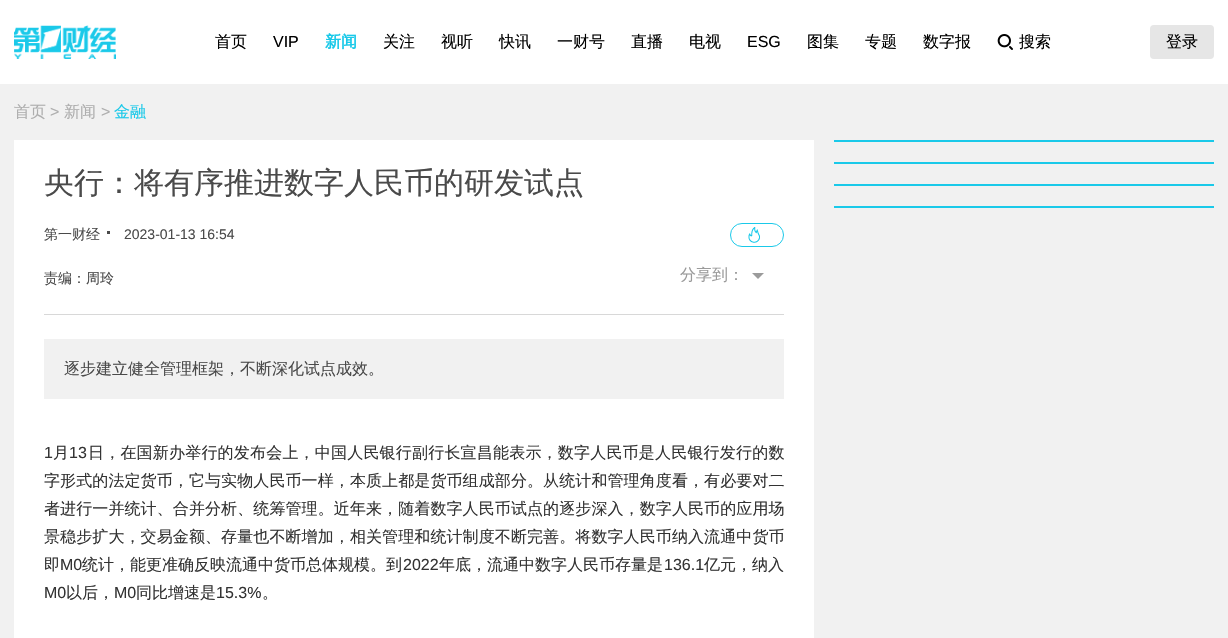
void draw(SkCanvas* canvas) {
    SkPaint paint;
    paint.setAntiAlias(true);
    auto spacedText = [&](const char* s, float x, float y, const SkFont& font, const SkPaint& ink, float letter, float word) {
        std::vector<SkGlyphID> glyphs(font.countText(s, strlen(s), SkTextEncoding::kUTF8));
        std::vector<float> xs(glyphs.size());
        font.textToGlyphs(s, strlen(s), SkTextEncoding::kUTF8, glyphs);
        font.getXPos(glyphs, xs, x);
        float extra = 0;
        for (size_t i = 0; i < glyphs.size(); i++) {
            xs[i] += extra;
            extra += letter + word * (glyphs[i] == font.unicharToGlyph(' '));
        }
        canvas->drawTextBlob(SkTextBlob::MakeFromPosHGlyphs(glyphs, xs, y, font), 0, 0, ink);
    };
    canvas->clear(0xFFF1F1F1);
    paint.setColor(0xFFFFFFFF);
    canvas->drawRect(SkRect::MakeXYWH(0, 0, 1228, 84), paint);
    canvas->drawImageRect(SkImages::DeferredFromEncodedData(SkData::MakeFromFileName("img1.png")), SkRect::MakeXYWH(14, 25, 102, 34), SkSamplingOptions());
    SkFont font1(fontMgr->matchFamilyStyle("WenQuanYi Zen Hei", SkFontStyle(500, SkFontStyle::kNormal_Width, SkFontStyle::kUpright_Slant)), 16);
    font1.setSubpixel(true);
    paint.setColor(0xFF000000);
    canvas->drawString("首页", 215, 47, font1, paint);
    SkFont font2(fontMgr->matchFamilyStyle("Liberation Sans", SkFontStyle::Normal()), 16);
    font2.setSubpixel(true);
    canvas->drawString("VIP", 273, 47, font2, paint);
    SkFont font3(fontMgr->matchFamilyStyle("WenQuanYi Zen Hei", SkFontStyle::Bold()), 16);
    font3.setSubpixel(true);
    paint.setColor(0xFF1AC9E9);
    canvas->drawString("新闻", 325, 47, font3, paint);
    paint.setColor(0xFF000000);
    canvas->drawString("关注", 383, 47, font1, paint);
    canvas->drawString("视听", 441, 47, font1, paint);
    canvas->drawString("快讯", 499, 47, font1, paint);
    canvas->drawString("一财号", 557, 47, font1, paint);
    canvas->drawString("直播", 631, 47, font1, paint);
    canvas->drawString("电视", 689, 47, font1, paint);
    canvas->drawString("ESG", 747, 47, font2, paint);
    canvas->drawString("图集", 807, 47, font1, paint);
    canvas->drawString("专题", 865, 47, font1, paint);
    canvas->drawString("数字报", 923, 47, font1, paint);
    canvas->drawImageRect(SkImages::DeferredFromEncodedData(SkData::MakeFromFileName("img2.png")), SkRect::MakeXYWH(997, 34, 16, 16), SkSamplingOptions());
    canvas->drawString("搜索", 1019, 47, font1, paint);
    paint.setColor(0xFFE6E6E6);
    canvas->drawRoundRect(SkRect::MakeXYWH(1150, 25, 64, 34), 4, 4, paint);
    paint.setColor(0xFF000000);
    canvas->drawString("登录", 1166, 47, font1, paint);
    paint.setColor(0xFFAEAEAE);
    canvas->drawString("首页", 14, 117, font1, paint);
    canvas->drawString(">", 50, 117, font2, paint);
    canvas->drawString("新闻", 64, 117, font1, paint);
    canvas->drawString(">", 101, 117, font2, paint);
    paint.setColor(0xFF1AC9E9);
    canvas->drawString("金融", 114, 117, font1, paint);
    paint.setColor(0xFFFFFFFF);
    canvas->drawRect(SkRect::MakeXYWH(14, 140, 800, 498), paint);
    paint.setColor(0xFFD8D8D8);
    canvas->drawRect(SkRect::MakeXYWH(44, 314, 740, 1), paint);
    SkFont font4(fontMgr->matchFamilyStyle("WenQuanYi Zen Hei", SkFontStyle(500, SkFontStyle::kNormal_Width, SkFontStyle::kUpright_Slant)), 30);
    font4.setSubpixel(true);
    paint.setColor(0xFF4A4A4A);
    canvas->drawString("央行：将有序推进数字人民币的研发试点", 44, 193, font4, paint);
    canvas->drawRect(SkRect::MakeXYWH(107, 231, 3, 3), paint);
    SkFont font5(fontMgr->matchFamilyStyle("WenQuanYi Zen Hei", SkFontStyle(500, SkFontStyle::kNormal_Width, SkFontStyle::kUpright_Slant)), 14);
    font5.setSubpixel(true);
    canvas->drawString("第一财经", 44, 239, font5, paint);
    SkFont font6(fontMgr->matchFamilyStyle("Liberation Sans", SkFontStyle::Normal()), 14);
    font6.setSubpixel(true);
    canvas->drawString("2023-01-13 16:54", 124, 239, font6, paint);
    paint.setStyle(SkPaint::kStroke_Style);
    paint.setStrokeWidth(1);
    paint.setColor(0xFF1AC9E9);
    canvas->drawRoundRect(SkRect::MakeXYWH(730.5f, 223.5f, 53, 23), 11.5f, 11.5f, paint);
    canvas->drawImageRect(SkImages::DeferredFromEncodedData(SkData::MakeFromFileName("img3.png")), SkRect::MakeXYWH(748, 227, 12, 16), SkSamplingOptions());
    paint.setStyle(SkPaint::kFill_Style);
    paint.setColor(0xFF4A4A4A);
    canvas->drawString("责编：周玲", 44, 283, font5, paint);
    canvas->drawImageRect(SkImages::DeferredFromEncodedData(SkData::MakeFromFileName("img4.png")), SkRect::MakeXYWH(752, 273, 12, 6), SkSamplingOptions());
    paint.setColor(0xFF9B9B9B);
    canvas->drawString("分享到：", 680, 280, font1, paint);
    paint.setColor(0xFFF1F1F1);
    canvas->drawRect(SkRect::MakeXYWH(44, 339, 740, 60), paint);
    paint.setColor(0xFF4A4A4A);
    canvas->drawString("逐步建立健全管理框架，不断深化试点成效。", 64, 374, font1, paint);
    paint.setColor(0xFF333333);
    spacedText("1", 44, 458, font2, paint, 0.2f, 0);
    spacedText("月", 53, 458, font1, paint, 0.2f, 0);
    spacedText("13", 69, 458, font2, paint, 0.2f, 0);
    spacedText("日，在国新办举行的发布会上，中国人民银行副行长宣昌能表示，数字人民币是人民银行发行的数", 88, 458, font1, paint, 0.2f, 0);
    spacedText("字形式的法定货币，它与实物人民币一样，本质上都是货币组成部分。从统计和管理角度看，有必要对二", 44, 486, font1, paint, 0.1f, 0);
    spacedText("者进行一并统计、合并分析、统筹管理。近年来，随着数字人民币试点的逐步深入，数字人民币的应用场", 44, 514, font1, paint, 0.1f, 0);
    spacedText("景稳步扩大，交易金额、存量也不断增加，相关管理和统计制度不断完善。将数字人民币纳入流通中货币", 44, 542, font1, paint, 0.1f, 0);
    canvas->drawString("即", 44, 570, font1, paint);
    canvas->drawString("M0", 60, 570, font2, paint);
    canvas->drawString("统计，能更准确反映流通中货币总体规模。到", 82, 570, font1, paint);
    canvas->drawString("2022", 403, 570, font2, paint);
    canvas->drawString("年底，流通中数字人民币存量是", 439, 570, font1, paint);
    canvas->drawString("136.1", 664, 570, font2, paint);
    canvas->drawString("亿元，纳入", 704, 570, font1, paint);
    canvas->drawString("M0", 44, 598, font2, paint);
    canvas->drawString("以后，", 66, 598, font1, paint);
    canvas->drawString("M0", 114, 598, font2, paint);
    canvas->drawString("同比增速是", 136, 598, font1, paint);
    canvas->drawString("15.3%", 216, 598, font2, paint);
    canvas->drawString("。", 262, 598, font1, paint);
    paint.setColor(0xFF1AC9E9);
    canvas->drawRect(SkRect::MakeXYWH(834, 140, 380, 2), paint);
    canvas->drawRect(SkRect::MakeXYWH(834, 162, 380, 2), paint);
    canvas->drawRect(SkRect::MakeXYWH(834, 184, 380, 2), paint);
    canvas->drawRect(SkRect::MakeXYWH(834, 206, 380, 2), paint);
}
